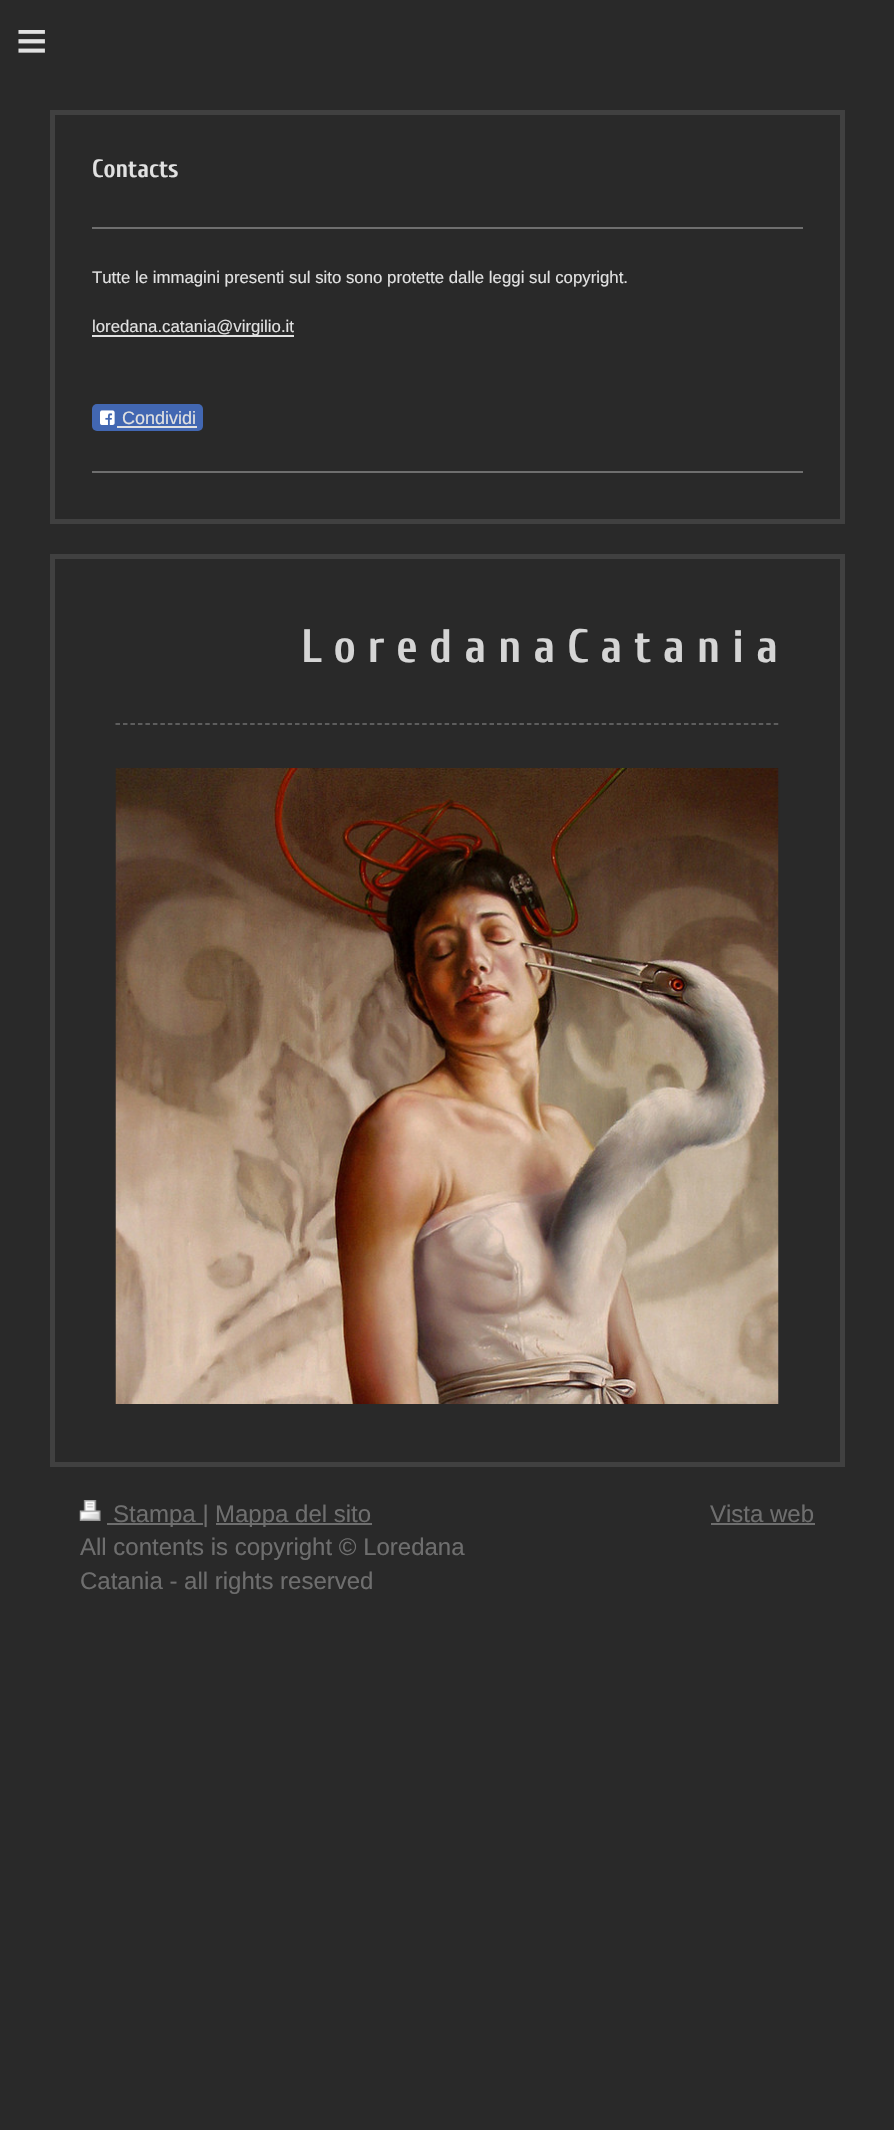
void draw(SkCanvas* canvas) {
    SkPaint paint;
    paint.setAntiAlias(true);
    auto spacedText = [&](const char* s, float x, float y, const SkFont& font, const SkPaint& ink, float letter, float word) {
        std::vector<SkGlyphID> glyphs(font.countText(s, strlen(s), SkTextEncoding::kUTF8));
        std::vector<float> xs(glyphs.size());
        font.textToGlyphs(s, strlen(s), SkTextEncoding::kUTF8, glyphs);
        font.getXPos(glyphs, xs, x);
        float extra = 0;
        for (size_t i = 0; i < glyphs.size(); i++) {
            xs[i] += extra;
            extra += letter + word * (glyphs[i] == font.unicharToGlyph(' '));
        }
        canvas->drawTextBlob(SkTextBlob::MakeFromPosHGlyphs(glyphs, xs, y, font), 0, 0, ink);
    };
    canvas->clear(0xFF292929);
    SkFont font1(fontMgr->matchFamilyStyle("Liberation Sans", SkFontStyle::Normal()), 54);
    font1.setSubpixel(true);
    paint.setColor(0xFFE1E1E1);
    spacedText("≡", 16, 59, font1, paint, 16, 0);
    paint.setStyle(SkPaint::kStroke_Style);
    paint.setStrokeWidth(5);
    paint.setColor(0xFF404040);
    canvas->drawRect(SkRect::MakeXYWH(52.5f, 112.5f, 790, 409), paint);
    SkFont font2(fontMgr->matchFamilyStyle("Cuprum", SkFontStyle::Bold()), 25);
    font2.setSubpixel(true);
    paint.setStyle(SkPaint::kFill_Style);
    paint.setColor(0xFFE1E1E1);
    canvas->drawString("Contacts", 92, 177, font2, paint);
    paint.setColor(0xFF6E6E6E);
    canvas->drawRect(SkRect::MakeXYWH(92, 227, 711, 2), paint);
    SkFont font3(fontMgr->matchFamilyStyle("Liberation Sans", SkFontStyle::Normal()), 16.8f);
    font3.setSubpixel(true);
    paint.setColor(0xFFE1E1E1);
    canvas->drawString("Tutte le immagini presenti sul sito sono protette dalle leggi sul copyright.", 92, 283, font3, paint);
    canvas->drawRect(SkRect::MakeXYWH(92, 335, 202, 2), paint);
    canvas->drawString("loredana.catania@virgilio.it", 92, 332, font3, paint);
    paint.setColor(0xFF4267B2);
    canvas->drawRoundRect(SkRect::MakeXYWH(92, 404, 111, 27), 5, 5, paint);
    canvas->drawImageRect(SkImages::DeferredFromEncodedData(SkData::MakeFromFileName("img1.png")), SkRect::MakeXYWH(100, 410, 15, 15), SkSamplingOptions());
    SkFont font4(fontMgr->matchFamilyStyle("Liberation Sans", SkFontStyle::Normal()), 18);
    font4.setSubpixel(true);
    paint.setColor(0xFFE1E1E1);
    canvas->drawString("Condividi", 122, 424, font4, paint);
    canvas->drawRect(SkRect::MakeXYWH(117, 426, 80, 2), paint);
    paint.setColor(0xFF6E6E6E);
    canvas->drawRect(SkRect::MakeXYWH(92, 471, 711, 2), paint);
    paint.setStyle(SkPaint::kStroke_Style);
    paint.setColor(0xFF404040);
    canvas->drawRect(SkRect::MakeXYWH(52.5f, 556.5f, 790, 908), paint);
    SkFont font5(fontMgr->matchFamilyStyle("Cuprum", SkFontStyle::Bold()), 46.75f);
    font5.setSubpixel(true);
    paint.setStyle(SkPaint::kFill_Style);
    paint.setColor(0xFFD5D5D5);
    canvas->drawString("L o r e d a n a C a t a n i a", 301, 662, font5, paint);
    paint.setStyle(SkPaint::kStroke_Style);
    paint.setStrokeWidth(1.5f);
    paint.setColor(0xFF6E6E6E);
    paint.setPathEffect(SkDashPathEffect::Make({{4.5f, 2.98f}}, 0));
    canvas->drawPath(SkPathBuilder().moveTo(115.5f, 724).lineTo(778.5f, 724).detach(), paint);
    paint.setPathEffect(nullptr);
    canvas->drawImageRect(SkImages::DeferredFromEncodedData(SkData::MakeFromFileName("img2.png")), SkRect::MakeXYWH(115, 768, 664, 636), SkSamplingOptions());
    canvas->drawImageRect(SkImages::DeferredFromEncodedData(SkData::MakeFromFileName("img3.png")), SkRect::MakeXYWH(79, 1500, 22, 21), SkSamplingOptions());
    paint.setStyle(SkPaint::kFill_Style);
    canvas->drawRect(SkRect::MakeXYWH(107, 1523, 96, 2), paint);
    SkFont font6(fontMgr->matchFamilyStyle("Liberation Sans", SkFontStyle::Normal()), 24);
    font6.setSubpixel(true);
    canvas->drawString("Stampa |", 113, 1522, font6, paint);
    canvas->drawRect(SkRect::MakeXYWH(216, 1523, 156, 2), paint);
    canvas->drawString("Mappa del sito", 215, 1522, font6, paint);
    canvas->drawString("All contents is copyright © Loredana", 80, 1555, font6, paint);
    canvas->drawString("Catania - all rights reserved", 80, 1589, font6, paint);
    canvas->drawString("Vista web", 710, 1522, font6, paint);
    canvas->drawRect(SkRect::MakeXYWH(711, 1523, 104, 2), paint);
}
